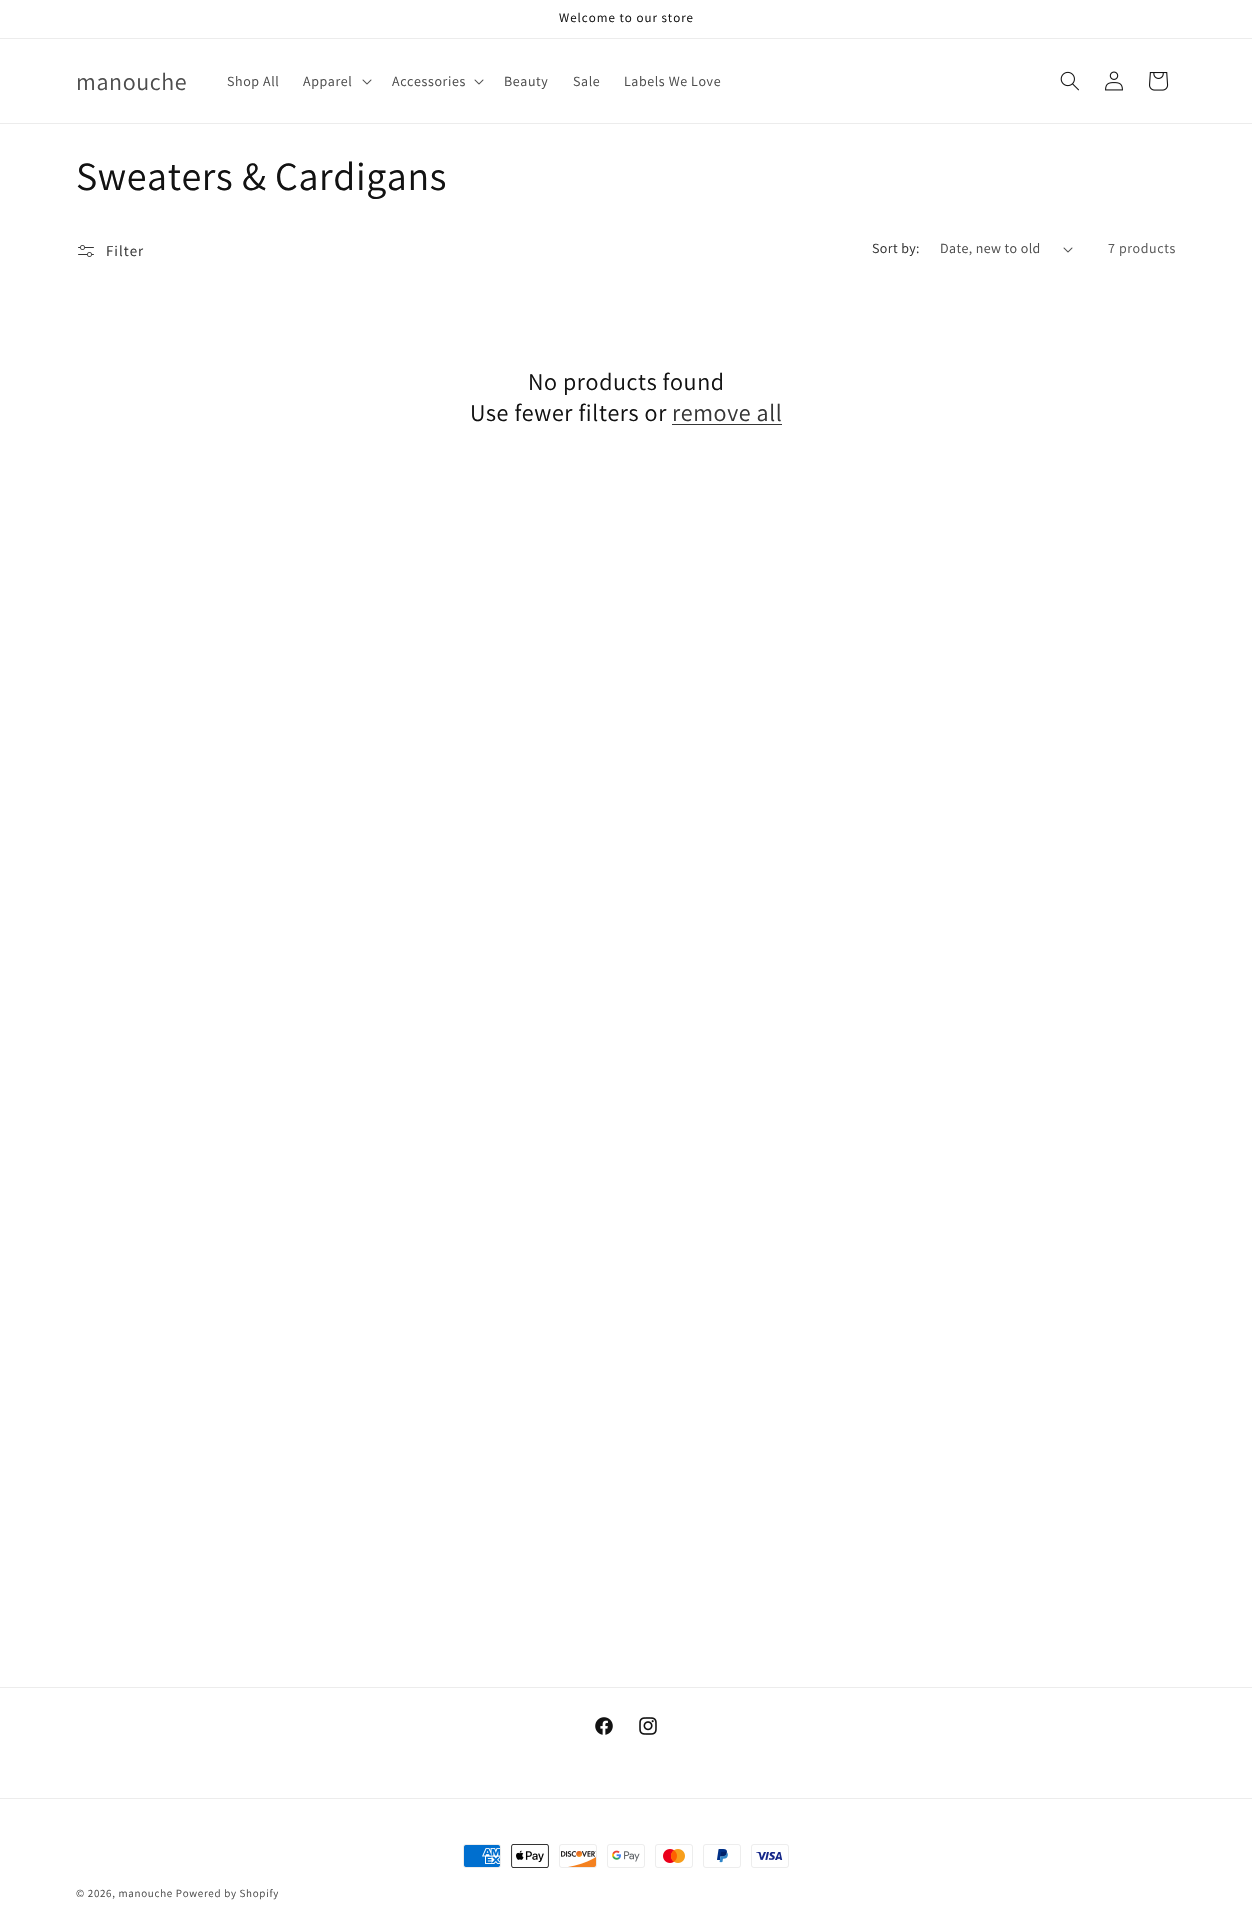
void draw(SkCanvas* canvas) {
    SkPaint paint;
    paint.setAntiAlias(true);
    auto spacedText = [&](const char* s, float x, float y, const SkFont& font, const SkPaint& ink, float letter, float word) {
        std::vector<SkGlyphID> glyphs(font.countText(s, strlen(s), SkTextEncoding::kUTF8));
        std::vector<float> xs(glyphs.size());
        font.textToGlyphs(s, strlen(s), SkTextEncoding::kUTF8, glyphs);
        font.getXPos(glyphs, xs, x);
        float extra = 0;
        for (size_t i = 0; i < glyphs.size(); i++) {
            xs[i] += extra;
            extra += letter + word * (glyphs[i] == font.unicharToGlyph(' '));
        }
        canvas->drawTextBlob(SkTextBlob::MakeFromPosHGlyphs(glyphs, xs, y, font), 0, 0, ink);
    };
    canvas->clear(0xFFFFFFFF);
    paint.setColor(0xFFECECEC);
    canvas->drawRect(SkRect::MakeXYWH(0, 38, 1252, 1), paint);
    SkFont font1(fontMgr->matchFamilyStyle("Assistant", SkFontStyle::Normal()), 13);
    font1.setSubpixel(true);
    paint.setColor(0xFF121212);
    spacedText("Welcome to our store", 559, 22, font1, paint, 1, 0);
    paint.setColor(0xFFECECEC);
    canvas->drawRect(SkRect::MakeXYWH(0, 123, 1252, 1), paint);
    SkFont font2(fontMgr->matchFamilyStyle("Assistant", SkFontStyle::Normal()), 24);
    font2.setSubpixel(true);
    paint.setColor(0xFF4D4D4D);
    spacedText("manouche", 76, 90, font2, paint, 0.6f, 0);
    SkFont font3(fontMgr->matchFamilyStyle("Assistant", SkFontStyle::Normal()), 14);
    font3.setSubpixel(true);
    spacedText("Shop All", 227, 86, font3, paint, 0.6f, 0);
    spacedText("Apparel", 303, 86, font3, paint, 0.6f, 0);
    canvas->drawImageRect(SkImages::DeferredFromEncodedData(SkData::MakeFromFileName("img1.png")), SkRect::MakeXYWH(362, 79, 10, 6), SkSamplingOptions());
    spacedText("Accessories", 392, 86, font3, paint, 0.6f, 0);
    canvas->drawImageRect(SkImages::DeferredFromEncodedData(SkData::MakeFromFileName("img1.png")), SkRect::MakeXYWH(474, 79, 10, 6), SkSamplingOptions());
    spacedText("Beauty", 504, 86, font3, paint, 0.6f, 0);
    spacedText("Sale", 573, 86, font3, paint, 0.6f, 0);
    spacedText("Labels We Love", 624, 86, font3, paint, 0.6f, 0);
    canvas->drawImageRect(SkImages::DeferredFromEncodedData(SkData::MakeFromFileName("img2.png")), SkRect::MakeXYWH(1060, 71, 19, 20), SkSamplingOptions());
    canvas->drawImageRect(SkImages::DeferredFromEncodedData(SkData::MakeFromFileName("img3.png")), SkRect::MakeXYWH(1105, 71, 18, 20), SkSamplingOptions());
    canvas->drawImageRect(SkImages::DeferredFromEncodedData(SkData::MakeFromFileName("img4.png")), SkRect::MakeXYWH(1149, 72, 20, 19), SkSamplingOptions());
    SkFont font4(fontMgr->matchFamilyStyle("Assistant", SkFontStyle::Normal()), 40);
    font4.setSubpixel(true);
    paint.setColor(0xFF121212);
    spacedText("Sweaters & Cardigans", 76, 190, font4, paint, 0.6f, 0);
    canvas->drawImageRect(SkImages::DeferredFromEncodedData(SkData::MakeFromFileName("img5.png")), SkRect::MakeXYWH(78, 245, 16, 12), SkSamplingOptions());
    SkFont font5(fontMgr->matchFamilyStyle("Assistant", SkFontStyle::Normal()), 15);
    font5.setSubpixel(true);
    paint.setColor(0xFF363636);
    spacedText("Filter", 106, 256, font5, paint, 1, 0);
    spacedText("Sort by:", 872, 253, font3, paint, 0.4f, 0);
    paint.setColor(0xFF4D4D4D);
    spacedText("Date, new to old", 940, 253, font3, paint, 0.4f, 0);
    canvas->drawImageRect(SkImages::DeferredFromEncodedData(SkData::MakeFromFileName("img1.png")), SkRect::MakeXYWH(1063, 247, 10, 6), SkSamplingOptions());
    paint.setColor(0xFF595959);
    spacedText("7 products", 1108, 253, font3, paint, 0.6f, 0);
    paint.setColor(0xFF121212);
    spacedText("No products found", 528, 390, font2, paint, 0.6f, 0);
    spacedText("Use fewer filters or", 470, 421, font2, paint, 0.6f, 0);
    paint.setColor(0xFF363636);
    spacedText("remove all", 672, 421, font2, paint, 0.6f, 0);
    canvas->drawRect(SkRect::MakeXYWH(672, 424, 110, 1), paint);
    paint.setColor(0xFFECECEC);
    canvas->drawRect(SkRect::MakeXYWH(0, 1687, 1252, 1), paint);
    canvas->drawImageRect(SkImages::DeferredFromEncodedData(SkData::MakeFromFileName("img6.png")), SkRect::MakeXYWH(595, 1717, 18, 18), SkSamplingOptions());
    canvas->drawImageRect(SkImages::DeferredFromEncodedData(SkData::MakeFromFileName("img7.png")), SkRect::MakeXYWH(639, 1717, 18, 18), SkSamplingOptions());
    canvas->drawRect(SkRect::MakeXYWH(0, 1798, 1252, 1), paint);
    canvas->drawImageRect(SkImages::DeferredFromEncodedData(SkData::MakeFromFileName("img8.png")), SkRect::MakeXYWH(463, 1844, 38, 24), SkSamplingOptions());
    canvas->drawImageRect(SkImages::DeferredFromEncodedData(SkData::MakeFromFileName("img9.png")), SkRect::MakeXYWH(511, 1844, 38, 24), SkSamplingOptions());
    canvas->drawImageRect(SkImages::DeferredFromEncodedData(SkData::MakeFromFileName("img10.png")), SkRect::MakeXYWH(559, 1844, 38, 24), SkSamplingOptions());
    canvas->drawImageRect(SkImages::DeferredFromEncodedData(SkData::MakeFromFileName("img11.png")), SkRect::MakeXYWH(607, 1844, 38, 24), SkSamplingOptions());
    canvas->drawImageRect(SkImages::DeferredFromEncodedData(SkData::MakeFromFileName("img12.png")), SkRect::MakeXYWH(655, 1844, 38, 24), SkSamplingOptions());
    canvas->drawImageRect(SkImages::DeferredFromEncodedData(SkData::MakeFromFileName("img13.png")), SkRect::MakeXYWH(703, 1844, 38, 24), SkSamplingOptions());
    canvas->drawImageRect(SkImages::DeferredFromEncodedData(SkData::MakeFromFileName("img14.png")), SkRect::MakeXYWH(751, 1844, 38, 24), SkSamplingOptions());
    SkFont font6(fontMgr->matchFamilyStyle("Assistant", SkFontStyle::Normal()), 11);
    font6.setSubpixel(true);
    paint.setColor(0xFF4D4D4D);
    spacedText("© 2026, manouche Powered by Shopify", 76, 1897, font6, paint, 0.7f, 0);
}
